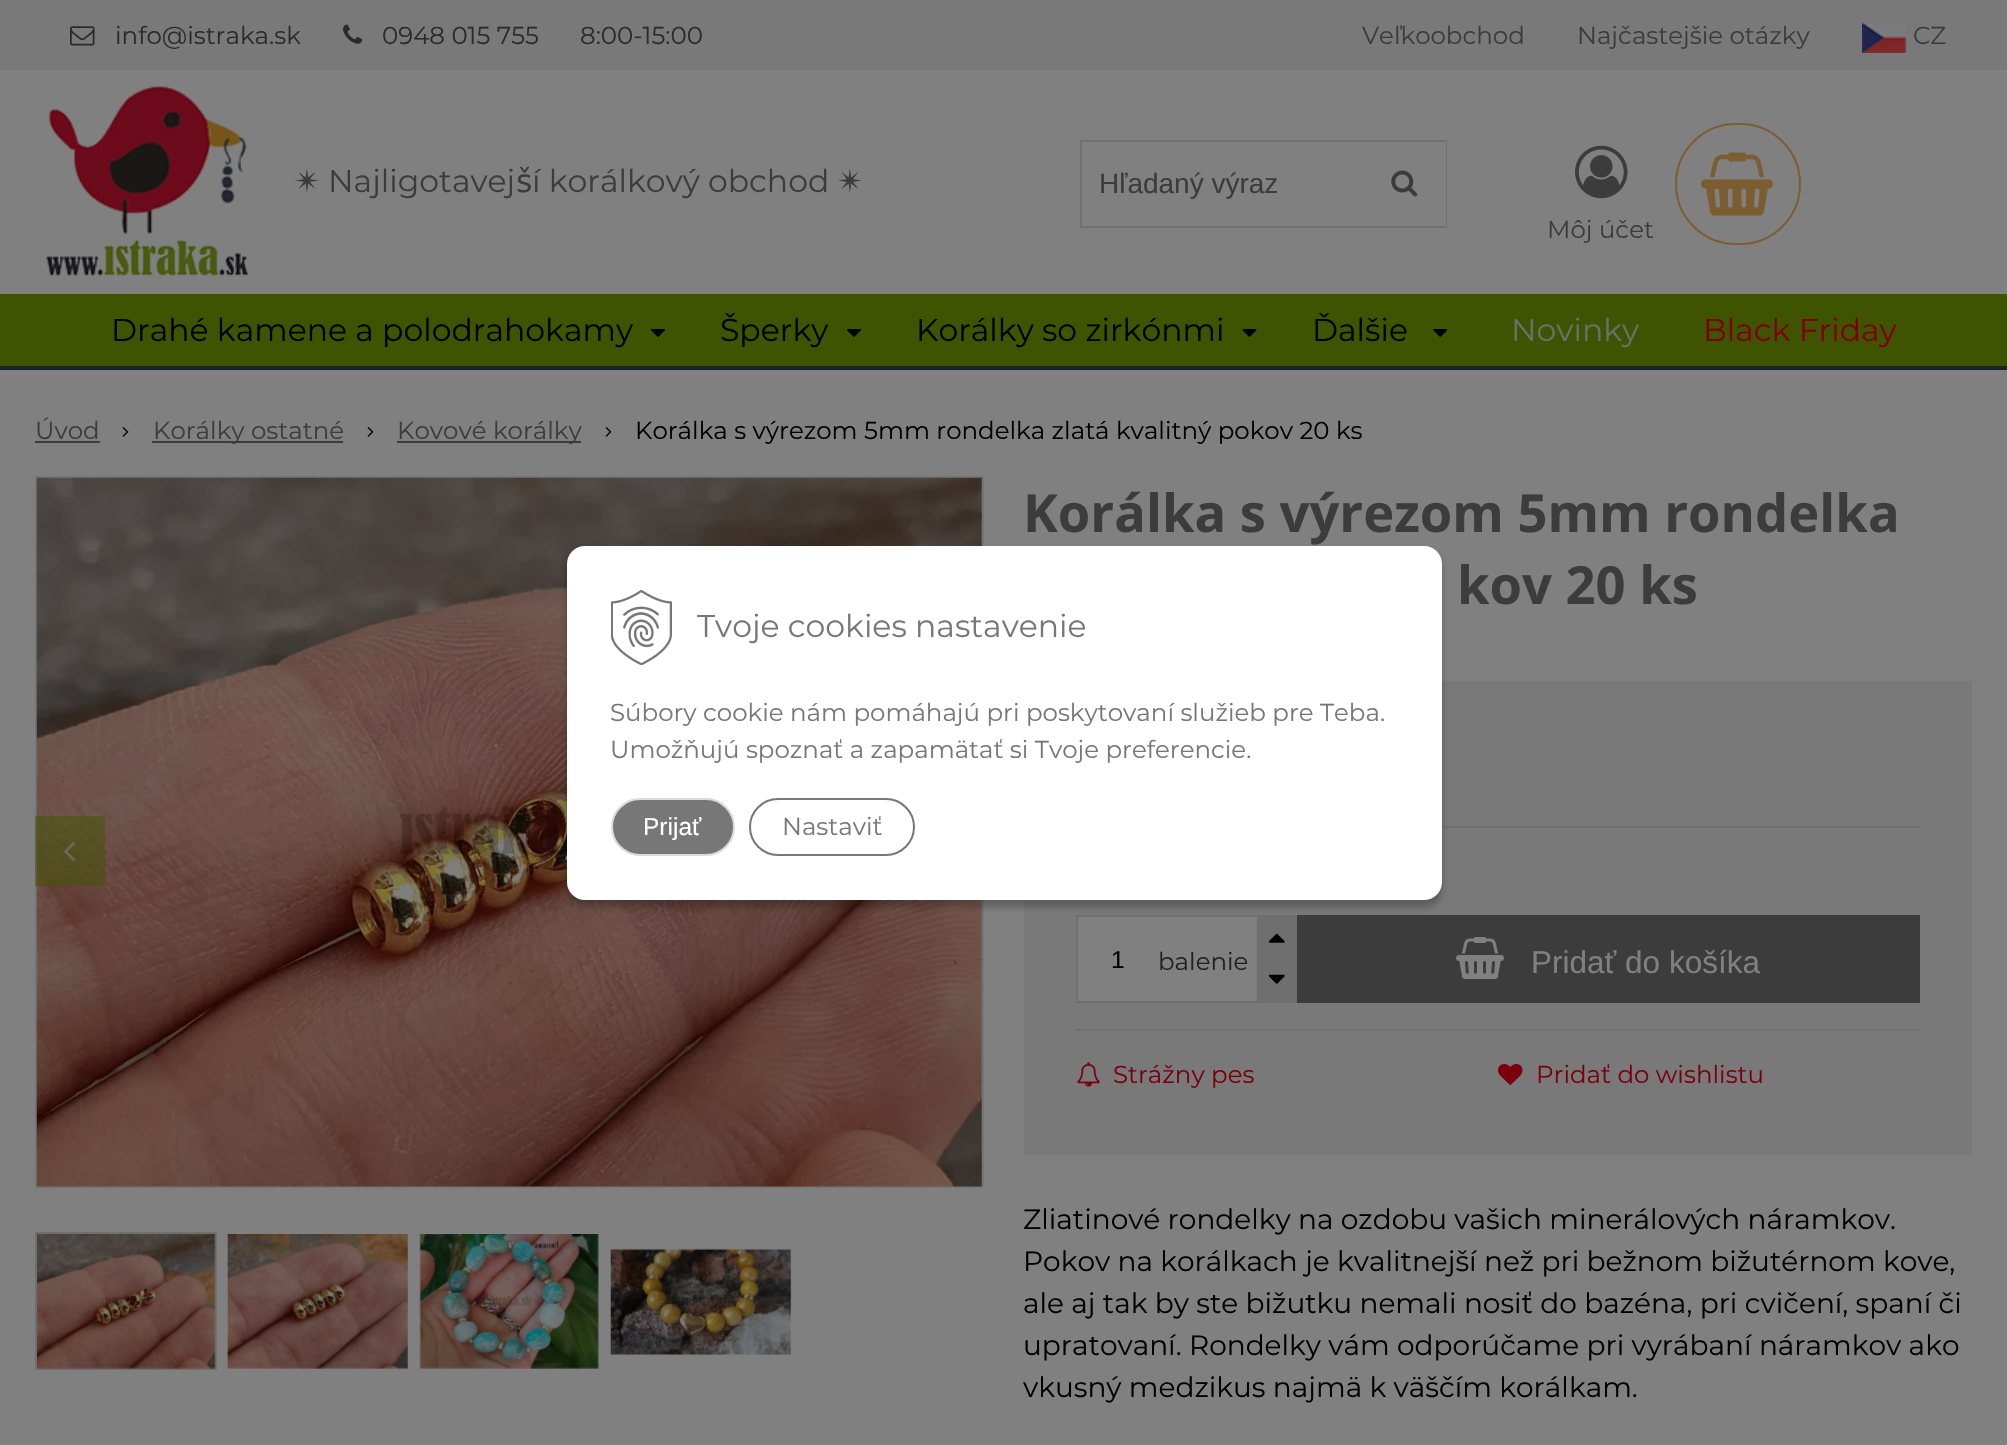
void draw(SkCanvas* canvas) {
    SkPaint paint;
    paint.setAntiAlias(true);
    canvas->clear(0xFF808080);
    paint.setColor(0xFF797979);
    canvas->drawRect(SkRect::MakeXYWH(0, 0, 2007, 70), paint);
    canvas->drawImageRect(SkImages::DeferredFromEncodedData(SkData::MakeFromFileName("img1.png")), SkRect::MakeXYWH(70, 26, 25, 20), SkSamplingOptions());
    SkFont font1(fontMgr->matchFamilyStyle("Montserrat", SkFontStyle::Normal()), 24.5f);
    font1.setSubpixel(true);
    paint.setColor(0xFF2B2B2B);
    canvas->drawString("info@istraka.sk", 115, 44, font1, paint);
    canvas->drawImageRect(SkImages::DeferredFromEncodedData(SkData::MakeFromFileName("img2.png")), SkRect::MakeXYWH(343, 24, 20, 20), SkSamplingOptions());
    canvas->drawString("0948 015 755", 382, 44, font1, paint);
    canvas->drawString("8:00-15:00", 580, 44, font1, paint);
    canvas->drawImageRect(SkImages::DeferredFromEncodedData(SkData::MakeFromFileName("img3.png")), SkRect::MakeXYWH(46, 85, 202, 191), SkSamplingOptions());
    SkFont font2(fontMgr->matchFamilyStyle("DejaVu Sans", SkFontStyle::Normal()), 31.5f);
    font2.setSubpixel(true);
    paint.setColor(0xFF3C3C3C);
    canvas->drawString("✴", 294, 192, font2, paint);
    SkFont font3(fontMgr->matchFamilyStyle("Montserrat", SkFontStyle::Normal()), 31.5f);
    font3.setSubpixel(true);
    canvas->drawString("Najligotavej", 328, 192, font3, paint);
    canvas->drawString("š", 516, 192, font2, paint);
    canvas->drawString("í korálkový obchod", 532, 192, font3, paint);
    canvas->drawString("✴", 837, 192, font2, paint);
    canvas->drawString("Veľkoobchod", 1362, 44, font1, paint);
    canvas->drawString("Najčastejšie otázky", 1577, 44, font1, paint);
    canvas->drawImageRect(SkImages::DeferredFromEncodedData(SkData::MakeFromFileName("img4.png")), SkRect::MakeXYWH(1862, 22, 45, 31), SkSamplingOptions());
    canvas->drawString("CZ", 1913, 44, font1, paint);
    paint.setStyle(SkPaint::kStroke_Style);
    paint.setStrokeWidth(2);
    paint.setColor(0xFF707070);
    canvas->drawRect(SkRect::MakeXYWH(1081, 141, 365, 86), paint);
    paint.setStyle(SkPaint::kFill_Style);
    paint.setColor(0xFF808080);
    canvas->drawRect(SkRect::MakeXYWH(1445, 142, 1, 84), paint);
    SkFont font4(fontMgr->matchFamilyStyle("Liberation Sans", SkFontStyle::Normal()), 28);
    font4.setSubpixel(true);
    paint.setColor(0xFF3C3C3C);
    canvas->drawString("Hľadaný výraz", 1099, 193, font4, paint);
    canvas->drawImageRect(SkImages::DeferredFromEncodedData(SkData::MakeFromFileName("img5.png")), SkRect::MakeXYWH(1391, 170, 27, 27), SkSamplingOptions());
    paint.setStyle(SkPaint::kStroke_Style);
    paint.setColor(0xFF7C5D31);
    canvas->drawRoundRect(SkRect::MakeXYWH(1676, 124, 124, 120), 60, 60, paint);
    canvas->drawImageRect(SkImages::DeferredFromEncodedData(SkData::MakeFromFileName("img6.png")), SkRect::MakeXYWH(1701, 152, 72, 64), SkSamplingOptions());
    canvas->drawImageRect(SkImages::DeferredFromEncodedData(SkData::MakeFromFileName("img7.png")), SkRect::MakeXYWH(1575, 145, 53, 54), SkSamplingOptions());
    paint.setStyle(SkPaint::kFill_Style);
    paint.setColor(0xFF3C3C3C);
    canvas->drawString("Môj účet", 1547, 238, font1, paint);
    paint.setColor(0xFF3F5400);
    canvas->drawRect(SkRect::MakeXYWH(0, 294, 2007, 72), paint);
    paint.setColor(0xFF17232D);
    canvas->drawRect(SkRect::MakeXYWH(0, 366, 2007, 4), paint);
    paint.setColor(0xFF000000);
    canvas->drawString("Drahé kamene a polodrahokamy", 111, 341, font3, paint);
    canvas->drawImageRect(SkImages::DeferredFromEncodedData(SkData::MakeFromFileName("img8.png")), SkRect::MakeXYWH(651, 329, 14, 8), SkSamplingOptions());
    canvas->drawString("Šperky", 720, 341, font3, paint);
    canvas->drawImageRect(SkImages::DeferredFromEncodedData(SkData::MakeFromFileName("img8.png")), SkRect::MakeXYWH(847, 329, 14, 8), SkSamplingOptions());
    canvas->drawString("Korálky so zirkónmi", 916, 341, font3, paint);
    canvas->drawImageRect(SkImages::DeferredFromEncodedData(SkData::MakeFromFileName("img9.png")), SkRect::MakeXYWH(1242, 329, 15, 8), SkSamplingOptions());
    canvas->drawString("Ďalšie", 1312, 341, font3, paint);
    canvas->drawImageRect(SkImages::DeferredFromEncodedData(SkData::MakeFromFileName("img10.png")), SkRect::MakeXYWH(1433, 329, 15, 8), SkSamplingOptions());
    paint.setColor(0xFF6C6E6E);
    canvas->drawString("Novinky", 1511, 341, font3, paint);
    paint.setColor(0xFF800000);
    canvas->drawString("Black Friday", 1703, 341, font3, paint);
    paint.setColor(0xFF3C3C3C);
    canvas->drawString("Úvod", 35, 439, font1, paint);
    canvas->drawRect(SkRect::MakeXYWH(35, 441, 65, 2), paint);
    canvas->drawImageRect(SkImages::DeferredFromEncodedData(SkData::MakeFromFileName("img11.png")), SkRect::MakeXYWH(122, 427, 7, 10), SkSamplingOptions());
    canvas->drawRect(SkRect::MakeXYWH(152, 441, 191, 2), paint);
    canvas->drawString("Korálky ostatné", 153, 439, font1, paint);
    canvas->drawImageRect(SkImages::DeferredFromEncodedData(SkData::MakeFromFileName("img12.png")), SkRect::MakeXYWH(367, 427, 7, 10), SkSamplingOptions());
    canvas->drawRect(SkRect::MakeXYWH(397, 441, 184, 2), paint);
    canvas->drawString("Kovové korálky", 397, 439, font1, paint);
    canvas->drawImageRect(SkImages::DeferredFromEncodedData(SkData::MakeFromFileName("img12.png")), SkRect::MakeXYWH(605, 427, 7, 10), SkSamplingOptions());
    paint.setColor(0xFF000000);
    canvas->drawString("Korálka s výrezom 5mm rondelka zlatá kvalitný pokov 20 ks", 635, 439, font1, paint);
    paint.setStyle(SkPaint::kStroke_Style);
    paint.setColor(0xFF757575);
    canvas->drawRect(SkRect::MakeXYWH(36, 477, 947, 710), paint);
    canvas->drawImageRect(SkImages::DeferredFromEncodedData(SkData::MakeFromFileName("img13.png")), SkRect::MakeXYWH(36, 477, 946, 710), SkSamplingOptions());
    paint.setStyle(SkPaint::kFill_Style);
    paint.setColor(0x803F5400);
    canvas->drawRect(SkRect::MakeXYWH(35, 816, 70, 70), paint);
    canvas->drawRect(SkRect::MakeXYWH(63, 865, 14, 2), paint);
    canvas->drawImageRect(SkImages::DeferredFromEncodedData(SkData::MakeFromFileName("img14.png")), SkRect::MakeXYWH(64, 841, 12, 21), SkSamplingOptions());
    paint.setStyle(SkPaint::kStroke_Style);
    paint.setColor(0xFF6F6F6F);
    canvas->drawRect(SkRect::MakeXYWH(36, 1233, 180, 136), paint);
    canvas->drawImageRect(SkImages::DeferredFromEncodedData(SkData::MakeFromFileName("img15.png")), SkRect::MakeXYWH(37, 1234, 179, 135), SkSamplingOptions());
    canvas->drawImageRect(SkImages::DeferredFromEncodedData(SkData::MakeFromFileName("img16.png")), SkRect::MakeXYWH(227, 1234, 181, 135), SkSamplingOptions());
    canvas->drawImageRect(SkImages::DeferredFromEncodedData(SkData::MakeFromFileName("img17.png")), SkRect::MakeXYWH(419, 1234, 180, 135), SkSamplingOptions());
    canvas->drawImageRect(SkImages::DeferredFromEncodedData(SkData::MakeFromFileName("img18.png")), SkRect::MakeXYWH(610, 1248, 182, 107), SkSamplingOptions());
    SkFont font5(fontMgr->matchFamilyStyle("Open Sans", SkFontStyle::Bold()), 52.5f);
    font5.setSubpixel(true);
    paint.setStyle(SkPaint::kFill_Style);
    paint.setColor(0xFF3C3C3C);
    canvas->drawString("Korálka s výrezom 5mm rondelka", 1023, 532, font5, paint);
    canvas->drawString("kov 20 ks", 1457, 604, font5, paint);
    paint.setColor(0xFF797979);
    canvas->drawRect(SkRect::MakeXYWH(1024, 681, 948, 474), paint);
    paint.setColor(0xFF6F6F6F);
    canvas->drawRect(SkRect::MakeXYWH(1442, 826, 478, 2), paint);
    paint.setColor(0xFF808080);
    canvas->drawRect(SkRect::MakeXYWH(1078, 917, 179, 84), paint);
    paint.setStyle(SkPaint::kStroke_Style);
    paint.setColor(0xFF6F6F6F);
    canvas->drawRect(SkRect::MakeXYWH(1077, 916, 219, 86), paint);
    SkFont font6(fontMgr->matchFamilyStyle("Liberation Sans", SkFontStyle::Normal()), 24.5f);
    font6.setSubpixel(true);
    paint.setStyle(SkPaint::kFill_Style);
    paint.setColor(0xFF000000);
    canvas->drawString("1", 1111, 968, font6, paint);
    paint.setColor(0xFF222222);
    canvas->drawString("balenie", 1158, 970, font1, paint);
    paint.setColor(0xFF6F6F6F);
    canvas->drawRect(SkRect::MakeXYWH(1257, 917, 38, 84), paint);
    canvas->drawImageRect(SkImages::DeferredFromEncodedData(SkData::MakeFromFileName("img19.png")), SkRect::MakeXYWH(1268, 933, 17, 10), SkSamplingOptions());
    canvas->drawImageRect(SkImages::DeferredFromEncodedData(SkData::MakeFromFileName("img20.png")), SkRect::MakeXYWH(1268, 974, 17, 10), SkSamplingOptions());
    paint.setColor(0xFF3C3C3C);
    canvas->drawRect(SkRect::MakeXYWH(1297, 915, 623, 88), paint);
    canvas->drawImageRect(SkImages::DeferredFromEncodedData(SkData::MakeFromFileName("img21.png")), SkRect::MakeXYWH(1456, 937, 48, 42), SkSamplingOptions());
    SkFont font7(fontMgr->matchFamilyStyle("Liberation Sans", SkFontStyle::Normal()), 31.5f);
    font7.setSubpixel(true);
    paint.setColor(0xFF808080);
    canvas->drawString("Pridať do košíka", 1531, 973, font7, paint);
    paint.setColor(0xFF6F6F6F);
    canvas->drawRect(SkRect::MakeXYWH(1076, 1029, 844, 2), paint);
    canvas->drawImageRect(SkImages::DeferredFromEncodedData(SkData::MakeFromFileName("img22.png")), SkRect::MakeXYWH(1077, 1062, 23, 25), SkSamplingOptions());
    paint.setColor(0xFF7A000D);
    canvas->drawString("Strážny pes", 1113, 1083, font1, paint);
    canvas->drawImageRect(SkImages::DeferredFromEncodedData(SkData::MakeFromFileName("img23.png")), SkRect::MakeXYWH(1498, 1064, 25, 21), SkSamplingOptions());
    canvas->drawString("Pridať do wishlistu", 1536, 1083, font1, paint);
    SkFont font8(fontMgr->matchFamilyStyle("Montserrat", SkFontStyle::Normal()), 28);
    font8.setSubpixel(true);
    paint.setColor(0xFF000000);
    canvas->drawString("Zliatinové rondelky na ozdobu vašich minerálových náramkov.", 1023, 1229, font8, paint);
    canvas->drawString("Pokov na korálkach je kvalitnejší než pri bežnom bižutérnom kove,", 1023, 1271, font8, paint);
    canvas->drawString("ale aj tak by ste bižutku nemali nosiť do bazéna, pri cvičení, spaní či", 1023, 1313, font8, paint);
    canvas->drawString("upratovaní. Rondelky vám odporúčame pri vyrábaní náramkov ako", 1023, 1355, font8, paint);
    canvas->drawString("vkusný medzikus najmä k väščím korálkam.", 1023, 1397, font8, paint);
    paint.setColor(0x40000000);
    paint.setMaskFilter(SkMaskFilter::MakeBlur(kNormal_SkBlurStyle, 3.5f));
    canvas->drawRoundRect(SkRect::MakeXYWH(567, 553, 875, 354), 18, 18, paint);
    paint.setMaskFilter(nullptr);
    paint.setColor(0xFFFFFFFF);
    canvas->drawRoundRect(SkRect::MakeXYWH(567, 546, 875, 354), 18, 18, paint);
    canvas->drawImageRect(SkImages::DeferredFromEncodedData(SkData::MakeFromFileName("img24.png")), SkRect::MakeXYWH(611, 590, 61, 75), SkSamplingOptions());
    paint.setColor(0xFF777777);
    canvas->drawString("Tvoje cookies nastavenie", 697, 637, font3, paint);
    canvas->drawString("Súbory cookie nám pomáhajú pri poskytovaní služieb pre Teba.", 610, 721, font1, paint);
    canvas->drawString("Umožňujú spoznať a zapamätať si Tvoje preferencie.", 610, 758, font1, paint);
    canvas->drawRoundRect(SkRect::MakeXYWH(612, 799, 122, 56), 28, 28, paint);
    paint.setStyle(SkPaint::kStroke_Style);
    paint.setColor(0xFFDBDBDB);
    canvas->drawRoundRect(SkRect::MakeXYWH(612, 799, 122, 56), 28, 28, paint);
    paint.setStyle(SkPaint::kFill_Style);
    paint.setColor(0xFFFFFFFF);
    canvas->drawString("Prijať", 643, 835, font6, paint);
    paint.setStyle(SkPaint::kStroke_Style);
    paint.setColor(0xFF777777);
    canvas->drawRoundRect(SkRect::MakeXYWH(750, 799, 164, 56), 28, 28, paint);
    paint.setStyle(SkPaint::kFill_Style);
    canvas->drawString("Nastaviť", 782, 835, font1, paint);
}
